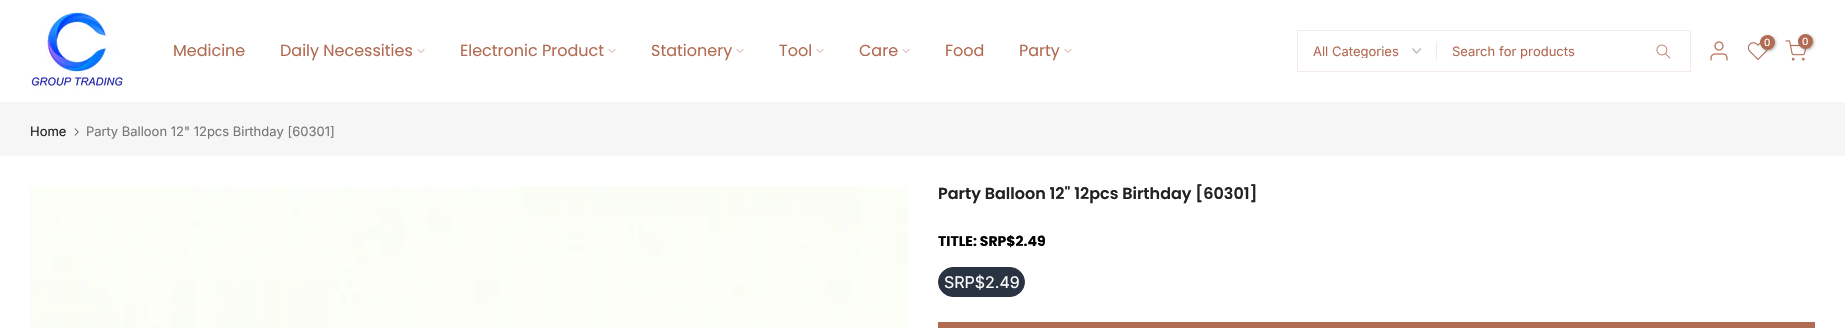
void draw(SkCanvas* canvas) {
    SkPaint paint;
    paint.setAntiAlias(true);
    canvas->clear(0xFFFFFFFF);
    canvas->drawImageRect(SkImages::DeferredFromEncodedData(SkData::MakeFromFileName("img1.png")), SkRect::MakeXYWH(30, 12, 95, 81), SkSamplingOptions());
    SkFont font1(fontMgr->matchFamilyStyle("Poppins", SkFontStyle::Normal()), 16);
    font1.setSubpixel(true);
    paint.setColor(0xFFB26B53);
    canvas->drawString("Medicine", 173, 56, font1, paint);
    canvas->drawString("Daily Necessities", 280, 56, font1, paint);
    paint.setStyle(SkPaint::kStroke_Style);
    paint.setStrokeWidth(0.8f);
    paint.setStrokeCap(SkPaint::kSquare_Cap);
    paint.setColor(0xFFC18975);
    canvas->drawPath(SkPathBuilder().moveTo(424, 49.5f).lineTo(421, 52.5f).lineTo(418, 49.5f).detach(), paint);
    paint.setStyle(SkPaint::kFill_Style);
    paint.setColor(0xFFB26B53);
    canvas->drawString("Electronic Product", 460, 56, font1, paint);
    paint.setStyle(SkPaint::kStroke_Style);
    paint.setColor(0xFFC18975);
    canvas->drawPath(SkPathBuilder().moveTo(615, 49.5f).lineTo(612, 52.5f).lineTo(609, 49.5f).detach(), paint);
    paint.setStyle(SkPaint::kFill_Style);
    paint.setColor(0xFFB26B53);
    canvas->drawString("Stationery", 651, 56, font1, paint);
    paint.setStyle(SkPaint::kStroke_Style);
    paint.setColor(0xFFC18975);
    canvas->drawPath(SkPathBuilder().moveTo(743, 49.5f).lineTo(740, 52.5f).lineTo(737, 49.5f).detach(), paint);
    paint.setStyle(SkPaint::kFill_Style);
    paint.setColor(0xFFB26B53);
    canvas->drawString("Tool", 779, 56, font1, paint);
    paint.setStyle(SkPaint::kStroke_Style);
    paint.setColor(0xFFC18975);
    canvas->drawPath(SkPathBuilder().moveTo(823, 49.5f).lineTo(820, 52.5f).lineTo(817, 49.5f).detach(), paint);
    paint.setStyle(SkPaint::kFill_Style);
    paint.setColor(0xFFB26B53);
    canvas->drawString("Care", 859, 56, font1, paint);
    paint.setStyle(SkPaint::kStroke_Style);
    paint.setColor(0xFFC18975);
    canvas->drawPath(SkPathBuilder().moveTo(909, 49.5f).lineTo(906, 52.5f).lineTo(903, 49.5f).detach(), paint);
    paint.setStyle(SkPaint::kFill_Style);
    paint.setColor(0xFFB26B53);
    canvas->drawString("Food", 945, 56, font1, paint);
    canvas->drawString("Party", 1019, 56, font1, paint);
    paint.setStyle(SkPaint::kStroke_Style);
    paint.setColor(0xFFC18975);
    canvas->drawPath(SkPathBuilder().moveTo(1071, 49.5f).lineTo(1068, 52.5f).lineTo(1065, 49.5f).detach(), paint);
    paint.setStrokeWidth(1);
    paint.setStrokeCap(SkPaint::kButt_Cap);
    paint.setColor(0xFFF3E9E5);
    canvas->drawRect(SkRect::MakeXYWH(1297.5f, 30.5f, 393, 41), paint);
    paint.setStrokeWidth(1.4f);
    paint.setColor(0xFFBBBBBB);
    canvas->drawPath(SkPathBuilder().moveTo(1412.5f, 48.5f).lineTo(1416.5f, 53).lineTo(1421, 48.5f).detach(), paint);
    canvas->save();
    canvas->clipRect(SkRect::MakeXYWH(1313, 45, 93, 13));
    SkFont font2(fontMgr->matchFamilyStyle("Inter", SkFontStyle::Normal()), 13);
    font2.setSubpixel(true);
    paint.setStyle(SkPaint::kFill_Style);
    paint.setColor(0xFFB26B53);
    canvas->drawString("All Categories", 1313, 56, font2, paint);
    canvas->restore();
    paint.setColor(0xFFF3E9E5);
    canvas->drawRect(SkRect::MakeXYWH(1436, 42, 1, 18), paint);
    paint.setColor(0xFFB26B53);
    canvas->drawString("Search for products", 1452, 56, font2, paint);
    canvas->drawImageRect(SkImages::DeferredFromEncodedData(SkData::MakeFromFileName("img2.png")), SkRect::MakeXYWH(1656, 44, 15, 15), SkSamplingOptions());
    canvas->drawImageRect(SkImages::DeferredFromEncodedData(SkData::MakeFromFileName("img3.png")), SkRect::MakeXYWH(1710, 41, 18, 20), SkSamplingOptions());
    canvas->drawImageRect(SkImages::DeferredFromEncodedData(SkData::MakeFromFileName("img4.png")), SkRect::MakeXYWH(1747, 42, 21, 18), SkSamplingOptions());
    paint.setColor(0x4D000000);
    paint.setMaskFilter(SkMaskFilter::MakeBlur(kNormal_SkBlurStyle, 1.5f));
    canvas->drawRoundRect(SkRect::MakeXYWH(1761, 36, 15, 15), 7.5f, 7.5f, paint);
    paint.setMaskFilter(nullptr);
    paint.setColor(0xFFB26B53);
    canvas->drawCircle(1767.5f, 42.5f, 7.5f, paint);
    SkFont font3(fontMgr->matchFamilyStyle("Inter", SkFontStyle::Normal()), 10);
    font3.setSubpixel(true);
    paint.setColor(0xFFFFFFFF);
    canvas->drawString("0", 1764, 46, font3, paint);
    canvas->drawImageRect(SkImages::DeferredFromEncodedData(SkData::MakeFromFileName("img5.png")), SkRect::MakeXYWH(1785, 40, 22, 21), SkSamplingOptions());
    paint.setColor(0x4D000000);
    paint.setMaskFilter(SkMaskFilter::MakeBlur(kNormal_SkBlurStyle, 1.5f));
    canvas->drawRoundRect(SkRect::MakeXYWH(1799, 35, 15, 15), 7.5f, 7.5f, paint);
    paint.setMaskFilter(nullptr);
    paint.setColor(0xFFB26B53);
    canvas->drawCircle(1805.5f, 41.5f, 7.5f, paint);
    paint.setColor(0xFFFFFFFF);
    canvas->drawString("0", 1802, 45, font3, paint);
    paint.setColor(0xFFF6F6F6);
    canvas->drawRect(SkRect::MakeXYWH(0, 102, 1845, 54), paint);
    paint.setColor(0xFF222222);
    canvas->drawString("Home", 30, 136, font2, paint);
    canvas->drawImageRect(SkImages::DeferredFromEncodedData(SkData::MakeFromFileName("img6.png")), SkRect::MakeXYWH(74, 128, 5, 8), SkSamplingOptions());
    paint.setColor(0xFF777777);
    canvas->drawString("Party Balloon 12\" 12pcs Birthday [60301]", 86, 136, font2, paint);
    canvas->drawImageRect(SkImages::DeferredFromEncodedData(SkData::MakeFromFileName("img7.png")), SkRect::MakeXYWH(30, 186, 878, 142), SkSamplingOptions());
    SkFont font4(fontMgr->matchFamilyStyle("Poppins", SkFontStyle(600, SkFontStyle::kNormal_Width, SkFontStyle::kUpright_Slant)), 16);
    font4.setSubpixel(true);
    paint.setColor(0xFF222222);
    canvas->drawString("Party Balloon 12\" 12pcs Birthday [60301]", 938, 199, font4, paint);
    SkFont font5(fontMgr->matchFamilyStyle("Poppins", SkFontStyle::Bold()), 14);
    font5.setSubpixel(true);
    paint.setColor(0xFF000000);
    canvas->drawString("TITLE: SRP$2.49", 938, 246, font5, paint);
    paint.setColor(0xFF293341);
    canvas->drawRoundRect(SkRect::MakeXYWH(938.5f, 267.5f, 86, 29), 14.5f, 14.5f, paint);
    paint.setStyle(SkPaint::kStroke_Style);
    paint.setStrokeWidth(1);
    canvas->drawRoundRect(SkRect::MakeXYWH(938.5f, 267.5f, 86, 29), 14.5f, 14.5f, paint);
    SkFont font6(fontMgr->matchFamilyStyle("Inter", SkFontStyle::Normal()), 16);
    font6.setSubpixel(true);
    paint.setStyle(SkPaint::kFill_Style);
    paint.setColor(0xFFFFFFFF);
    canvas->drawString("SRP$2.49", 944, 288, font6, paint);
    paint.setColor(0xFFB26B53);
    canvas->drawRect(SkRect::MakeXYWH(938, 322, 877, 6), paint);
}
